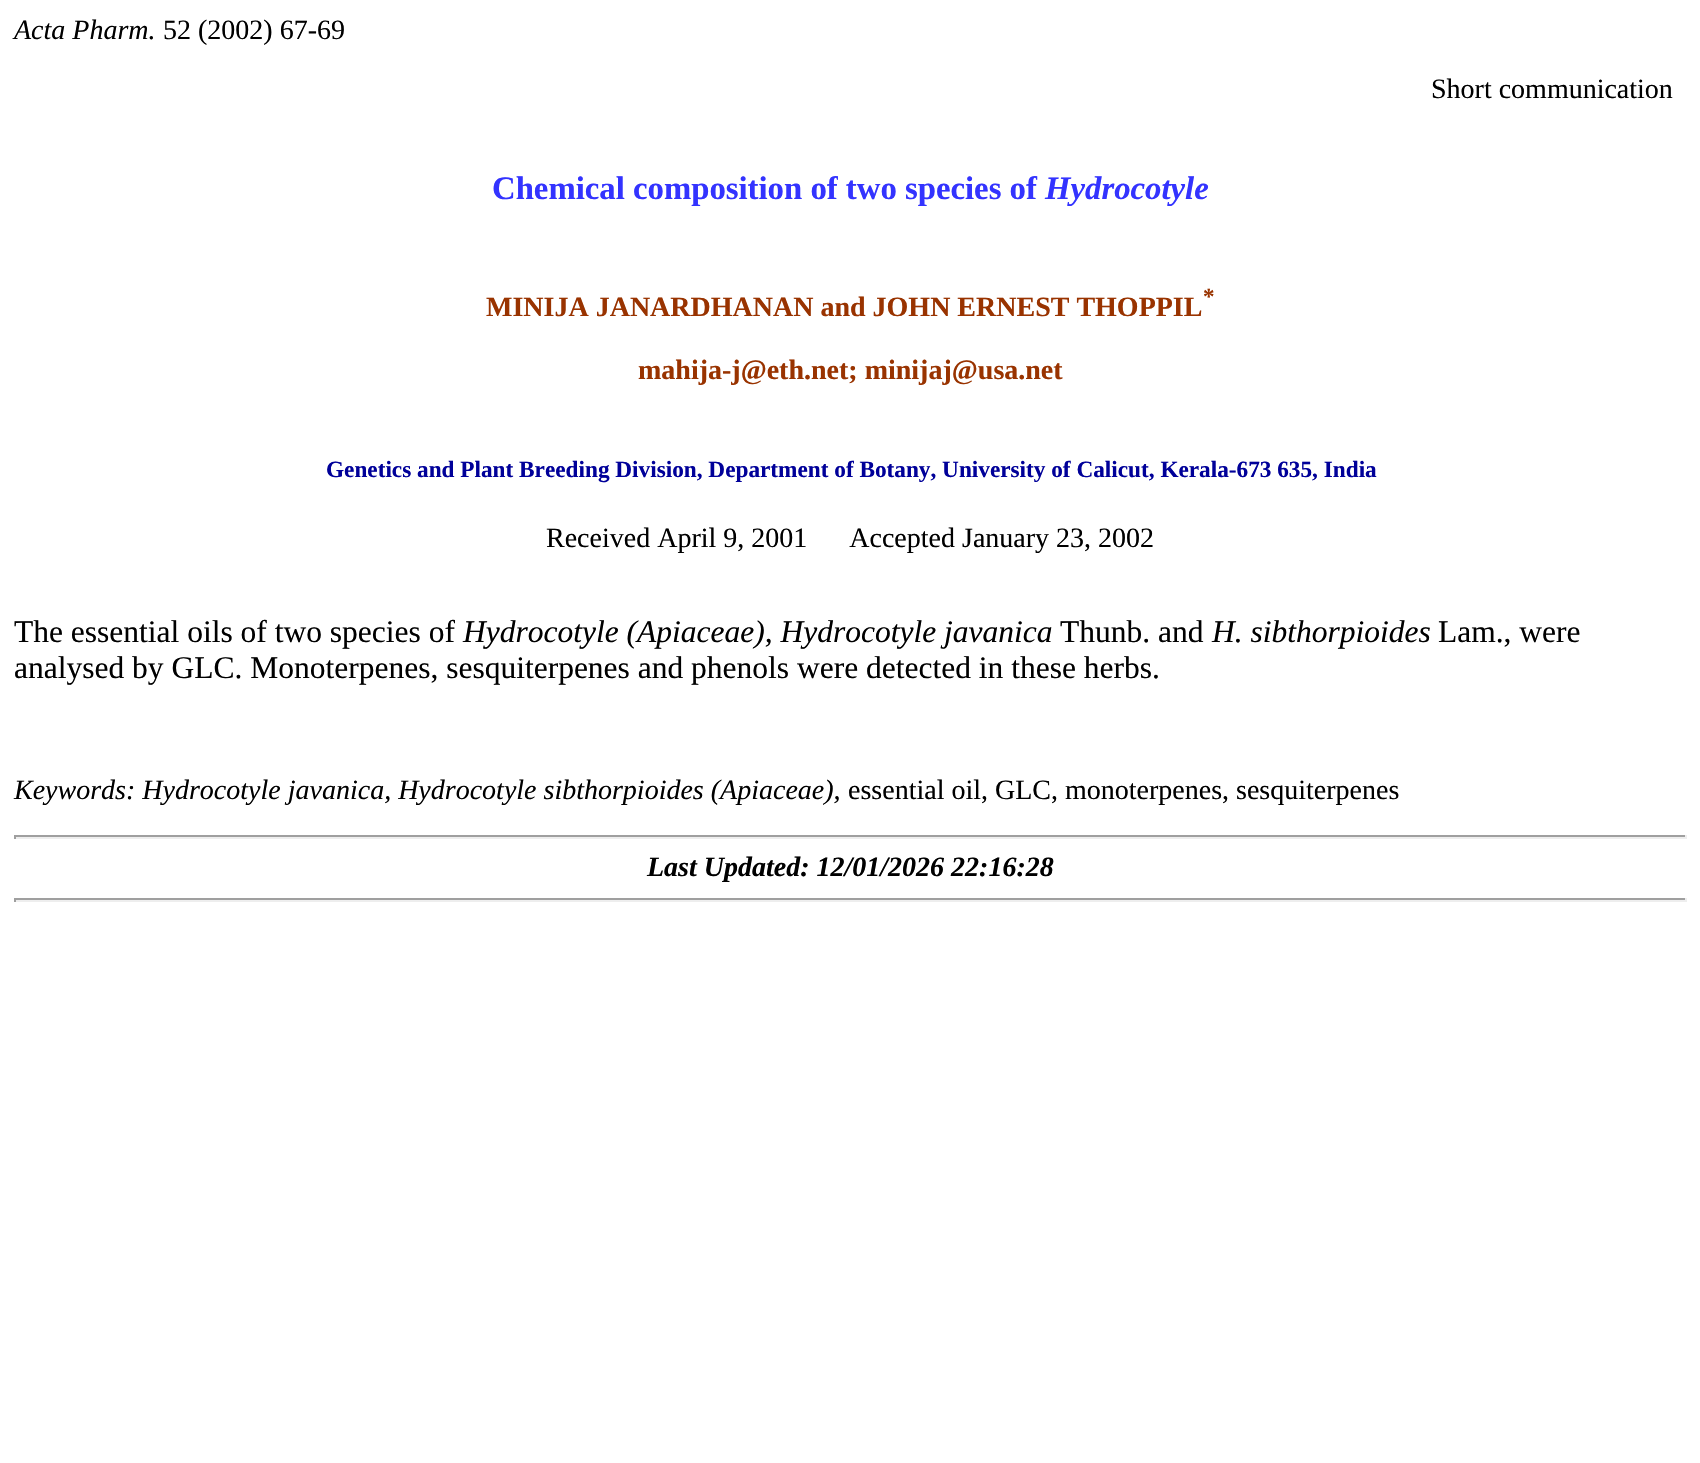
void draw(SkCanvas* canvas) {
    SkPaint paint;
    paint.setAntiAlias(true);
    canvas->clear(0xFFFFFFFF);
    SkFont font1(fontMgr->matchFamilyStyle("Liberation Serif", SkFontStyle::Italic()), 28);
    font1.setSubpixel(true);
    paint.setColor(0xFF000000);
    canvas->drawString("Acta Pharm.", 14, 39, font1, paint);
    SkFont font2(fontMgr->matchFamilyStyle("Liberation Serif", SkFontStyle::Normal()), 28);
    font2.setSubpixel(true);
    canvas->drawString("52 (2002) 67-69", 163, 39, font2, paint);
    canvas->drawString("Short communication", 1431, 98, font2, paint);
    SkFont font3(fontMgr->matchFamilyStyle("Liberation Serif", SkFontStyle::Bold()), 32.75f);
    font3.setSubpixel(true);
    paint.setColor(0xFF3333FF);
    canvas->drawString("Chemical composition of two species of", 492, 199, font3, paint);
    SkFont font4(fontMgr->matchFamilyStyle("Liberation Serif", SkFontStyle::BoldItalic()), 32.75f);
    font4.setSubpixel(true);
    canvas->drawString("Hydrocotyle", 1045, 199, font4, paint);
    SkFont font5(fontMgr->matchFamilyStyle("Liberation Serif", SkFontStyle::Bold()), 23);
    font5.setSubpixel(true);
    paint.setColor(0xFF993300);
    canvas->drawString("*", 1203, 304, font5, paint);
    SkFont font6(fontMgr->matchFamilyStyle("Liberation Serif", SkFontStyle::Bold()), 28);
    font6.setSubpixel(true);
    canvas->drawString("MINIJA JANARDHANAN and JOHN ERNEST THOPPIL", 486, 316, font6, paint);
    canvas->drawString("mahija-j@eth.net; minijaj@usa.net", 638, 379, font6, paint);
    SkFont font7(fontMgr->matchFamilyStyle("Liberation Serif", SkFontStyle::Bold()), 23.25f);
    font7.setSubpixel(true);
    paint.setColor(0xFF000099);
    canvas->drawString("Genetics and Plant Breeding Division, Department of Botany, University of Calicut, Kerala-673 635, India", 326, 477, font7, paint);
    paint.setColor(0xFF000000);
    canvas->drawString("Received April 9, 2001      Accepted January 23, 2002", 546, 547, font2, paint);
    SkFont font8(fontMgr->matchFamilyStyle("Liberation Serif", SkFontStyle::Normal()), 31.5f);
    font8.setSubpixel(true);
    canvas->drawString("The essential oils of two species of", 14, 642, font8, paint);
    SkFont font9(fontMgr->matchFamilyStyle("Liberation Serif", SkFontStyle::Italic()), 31.5f);
    font9.setSubpixel(true);
    canvas->drawString("Hydrocotyle (Apiaceae), Hydrocotyle javanica", 463, 642, font9, paint);
    canvas->drawString("Thunb. and", 1060, 642, font8, paint);
    canvas->drawString("H. sibthorpioides", 1212, 642, font9, paint);
    canvas->drawString("Lam., were", 1438, 642, font8, paint);
    canvas->drawString("analysed by GLC. Monoterpenes, sesquiterpenes and phenols were detected in these herbs.", 14, 678, font8, paint);
    canvas->drawString("Keywords: Hydrocotyle javanica, Hydrocotyle sibthorpioides (Apiaceae),", 14, 799, font1, paint);
    canvas->drawString("essential oil, GLC, monoterpenes, sesquiterpenes", 848, 799, font2, paint);
    paint.setColor(0xFF9F9F9F);
    canvas->drawRect(SkRect::MakeXYWH(14, 835, 1673, 2), paint);
    paint.setColor(0xFFEEEEEE);
    canvas->drawRect(SkRect::MakeXYWH(1685, 835, 2, 4), paint);
    canvas->drawRect(SkRect::MakeXYWH(14, 837, 1673, 2), paint);
    paint.setColor(0xFF9F9F9F);
    canvas->drawRect(SkRect::MakeXYWH(14, 835, 2, 4), paint);
    SkFont font10(fontMgr->matchFamilyStyle("Liberation Serif", SkFontStyle::BoldItalic()), 28);
    font10.setSubpixel(true);
    paint.setColor(0xFF000000);
    canvas->drawString("Last Updated: 12/01/2026 22:16:28", 647, 876, font10, paint);
    paint.setColor(0xFF9F9F9F);
    canvas->drawRect(SkRect::MakeXYWH(14, 898, 1673, 2), paint);
    paint.setColor(0xFFEEEEEE);
    canvas->drawRect(SkRect::MakeXYWH(1685, 898, 2, 4), paint);
    canvas->drawRect(SkRect::MakeXYWH(14, 900, 1673, 2), paint);
    paint.setColor(0xFF9F9F9F);
    canvas->drawRect(SkRect::MakeXYWH(14, 898, 2, 4), paint);
}
